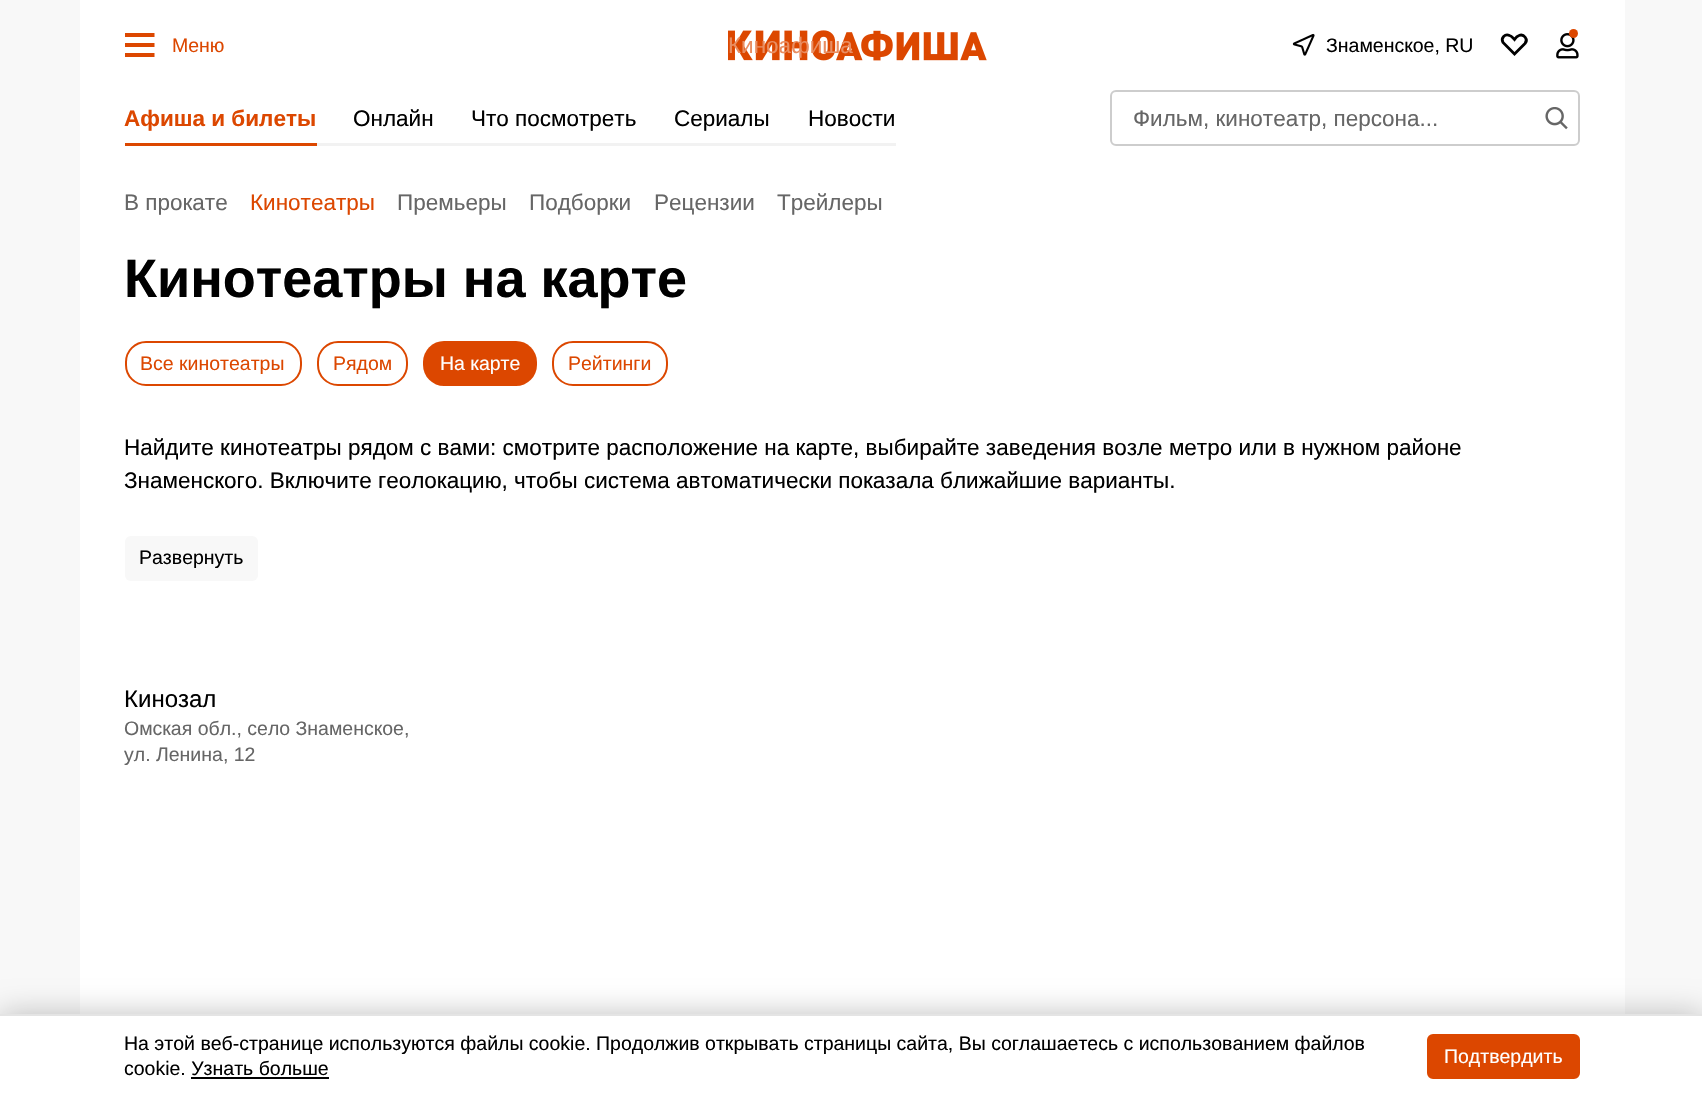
void draw(SkCanvas* canvas) {
    SkPaint paint;
    paint.setAntiAlias(true);
    canvas->clear(0xFFF8F8F8);
    paint.setColor(0xFFFFFFFF);
    canvas->drawRect(SkRect::MakeXYWH(80, 0, 1545, 1014), paint);
    canvas->drawImageRect(SkImages::DeferredFromEncodedData(SkData::MakeFromFileName("img1.png")), SkRect::MakeXYWH(125, 33, 30, 24), SkSamplingOptions());
    SkFont font1(fontMgr->matchFamilyStyle("Liberation Sans", SkFontStyle::Normal()), 19.5f);
    font1.setSubpixel(true);
    paint.setColor(0xFFDC4700);
    canvas->drawString("Меню", 172, 52, font1, paint);
    canvas->drawImageRect(SkImages::DeferredFromEncodedData(SkData::MakeFromFileName("img2.png")), SkRect::MakeXYWH(728, 30, 108, 31), SkSamplingOptions());
    canvas->drawImageRect(SkImages::DeferredFromEncodedData(SkData::MakeFromFileName("img3.png")), SkRect::MakeXYWH(836, 30, 151, 31), SkSamplingOptions());
    SkFont font2(fontMgr->matchFamilyStyle("Liberation Sans", SkFontStyle::Normal()), 22.5f);
    font2.setSubpixel(true);
    paint.setColor(0xFFE98E62);
    canvas->drawString("Киноафиша", 728, 53, font2, paint);
    canvas->drawImageRect(SkImages::DeferredFromEncodedData(SkData::MakeFromFileName("img4.png")), SkRect::MakeXYWH(1292, 33, 23, 23), SkSamplingOptions());
    paint.setColor(0xFF000000);
    canvas->drawString("Знаменское, RU", 1326, 52, font1, paint);
    paint.setStyle(SkPaint::kStroke_Style);
    paint.setStrokeWidth(2.8f);
    canvas->drawPath(SkPathBuilder().moveTo(1525, 43.5f).lineTo(1514.5f, 54).lineTo(1503, 42.5f).cubicTo(1500.5f, 38, 1505, 33.5f, 1509.5f, 35.5f).cubicTo(1511.5f, 36, 1513, 38, 1514.5f, 39.5f).cubicTo(1515.5f, 38, 1517.5f, 36, 1519, 35.5f).cubicTo(1524, 33.5f, 1528.5f, 39.5f, 1525, 43.5f).detach(), paint);
    canvas->drawImageRect(SkImages::DeferredFromEncodedData(SkData::MakeFromFileName("img5.png")), SkRect::MakeXYWH(1556, 33, 23, 26), SkSamplingOptions());
    paint.setStyle(SkPaint::kFill_Style);
    paint.setColor(0xFFDC4700);
    canvas->drawCircle(1573.5f, 33.5f, 4.5f, paint);
    SkFont font3(fontMgr->matchFamilyStyle("Liberation Sans", SkFontStyle::Bold()), 22.5f);
    font3.setSubpixel(true);
    canvas->drawString("Афиша и билеты", 124, 126, font3, paint);
    canvas->drawRect(SkRect::MakeXYWH(125, 143, 192, 3), paint);
    paint.setColor(0xFF000000);
    canvas->drawString("Онлайн", 353, 126, font2, paint);
    canvas->drawString("Что посмотреть", 471, 126, font2, paint);
    canvas->drawString("Сериалы", 674, 126, font2, paint);
    canvas->drawString("Новости", 808, 126, font2, paint);
    paint.setColor(0xFFF2F2F2);
    canvas->drawRect(SkRect::MakeXYWH(317, 143, 579, 3), paint);
    paint.setStyle(SkPaint::kStroke_Style);
    paint.setStrokeWidth(2);
    paint.setColor(0xFFCDCDCD);
    canvas->drawRoundRect(SkRect::MakeXYWH(1111, 91, 468, 54), 5, 5, paint);
    paint.setStyle(SkPaint::kFill_Style);
    paint.setColor(0xFF666666);
    canvas->drawString("Фильм, кинотеатр, персона...", 1133, 126, font2, paint);
    canvas->drawImageRect(SkImages::DeferredFromEncodedData(SkData::MakeFromFileName("img6.png")), SkRect::MakeXYWH(1545, 107, 23, 23), SkSamplingOptions());
    canvas->drawString("В прокате", 124, 210, font2, paint);
    paint.setColor(0xFFDC4700);
    canvas->drawString("Кинотеатры", 250, 210, font2, paint);
    paint.setColor(0xFF666666);
    canvas->drawString("Премьеры", 397, 210, font2, paint);
    canvas->drawString("Подборки", 529, 210, font2, paint);
    canvas->drawString("Рецензии", 654, 210, font2, paint);
    canvas->drawString("Трейлеры", 777, 210, font2, paint);
    SkFont font4(fontMgr->matchFamilyStyle("Liberation Sans", SkFontStyle::Bold()), 54);
    font4.setSubpixel(true);
    paint.setColor(0xFF000000);
    canvas->drawString("Кинотеатры на карте", 124, 297, font4, paint);
    paint.setStyle(SkPaint::kStroke_Style);
    paint.setColor(0xFFDC4700);
    canvas->drawRoundRect(SkRect::MakeXYWH(126, 342, 175, 43), 20, 20, paint);
    paint.setStyle(SkPaint::kFill_Style);
    canvas->drawString("Все кинотеатры", 140, 370, font1, paint);
    paint.setStyle(SkPaint::kStroke_Style);
    canvas->drawRoundRect(SkRect::MakeXYWH(318, 342, 89, 43), 20, 20, paint);
    paint.setStyle(SkPaint::kFill_Style);
    canvas->drawString("Рядом", 333, 370, font1, paint);
    canvas->drawRoundRect(SkRect::MakeXYWH(423, 341, 114, 45), 21, 21, paint);
    paint.setColor(0xFFFFFFFF);
    canvas->drawString("На карте", 440, 370, font1, paint);
    paint.setStyle(SkPaint::kStroke_Style);
    paint.setColor(0xFFDC4700);
    canvas->drawRoundRect(SkRect::MakeXYWH(553, 342, 114, 43), 20, 20, paint);
    paint.setStyle(SkPaint::kFill_Style);
    canvas->drawString("Рейтинги", 568, 370, font1, paint);
    paint.setColor(0xFF000000);
    canvas->drawString("Найдите кинотеатры рядом с вами: смотрите расположение на карте, выбирайте заведения возле метро или в нужном районе", 124, 455, font2, paint);
    canvas->drawString("Знаменского. Включите геолокацию, чтобы система автоматически показала ближайшие варианты.", 124, 488, font2, paint);
    {
        const SkColor colors[] = {0xFFFFFFFF, 0x00FFFFFF};
        const float stops[] = {0.67f, 1};
        const SkPoint ends[] = {{852, 581}, {852, 491}};
        paint.setShader(SkGradientShader::MakeLinear(ends, colors, stops, 2, SkTileMode::kClamp));
        paint.setAlpha(255);
    }
    canvas->drawRect(SkRect::MakeXYWH(469, 492, 627, 1), paint);
    paint.setShader(nullptr);
    paint.setColor(0xFFF8F8F8);
    canvas->drawRoundRect(SkRect::MakeXYWH(125, 536, 133, 45), 6, 6, paint);
    paint.setColor(0xFF000000);
    canvas->drawString("Развернуть", 139, 564, font1, paint);
    SkFont font5(fontMgr->matchFamilyStyle("Liberation Sans", SkFontStyle::Normal()), 24);
    font5.setSubpixel(true);
    canvas->drawString("Кинозал", 124, 707, font5, paint);
    paint.setColor(0xFF666666);
    canvas->drawString("Омская обл., село Знаменское,", 124, 735, font1, paint);
    canvas->drawString("ул. Ленина, 12", 124, 761, font1, paint);
    paint.setColor(0x40000000);
    paint.setMaskFilter(SkMaskFilter::MakeBlur(kNormal_SkBlurStyle, 15));
    canvas->drawRect(SkRect::MakeXYWH(0, 1014, 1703, 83), paint);
    paint.setMaskFilter(nullptr);
    paint.setColor(0xFFFFFFFF);
    canvas->drawRect(SkRect::MakeXYWH(0, 1016, 1702, 80), paint);
    paint.setColor(0xFFE4E4E4);
    canvas->drawRect(SkRect::MakeXYWH(0, 1014, 1702, 2), paint);
    paint.setColor(0xFF000000);
    canvas->drawString("На этой веб-странице используются файлы cookie. Продолжив открывать страницы сайта, Вы соглашаетесь с использованием файлов", 124, 1050, font1, paint);
    canvas->drawString("cookie. Узнать больше", 124, 1075, font1, paint);
    canvas->drawRect(SkRect::MakeXYWH(191, 1077, 138, 2), paint);
    paint.setColor(0xFFDC4700);
    canvas->drawRoundRect(SkRect::MakeXYWH(1428, 1035, 151, 43), 5, 5, paint);
    paint.setStyle(SkPaint::kStroke_Style);
    canvas->drawRoundRect(SkRect::MakeXYWH(1428, 1035, 151, 43), 5, 5, paint);
    paint.setStyle(SkPaint::kFill_Style);
    paint.setColor(0xFFFFFFFF);
    canvas->drawString("Подтвердить", 1444, 1063, font1, paint);
}
